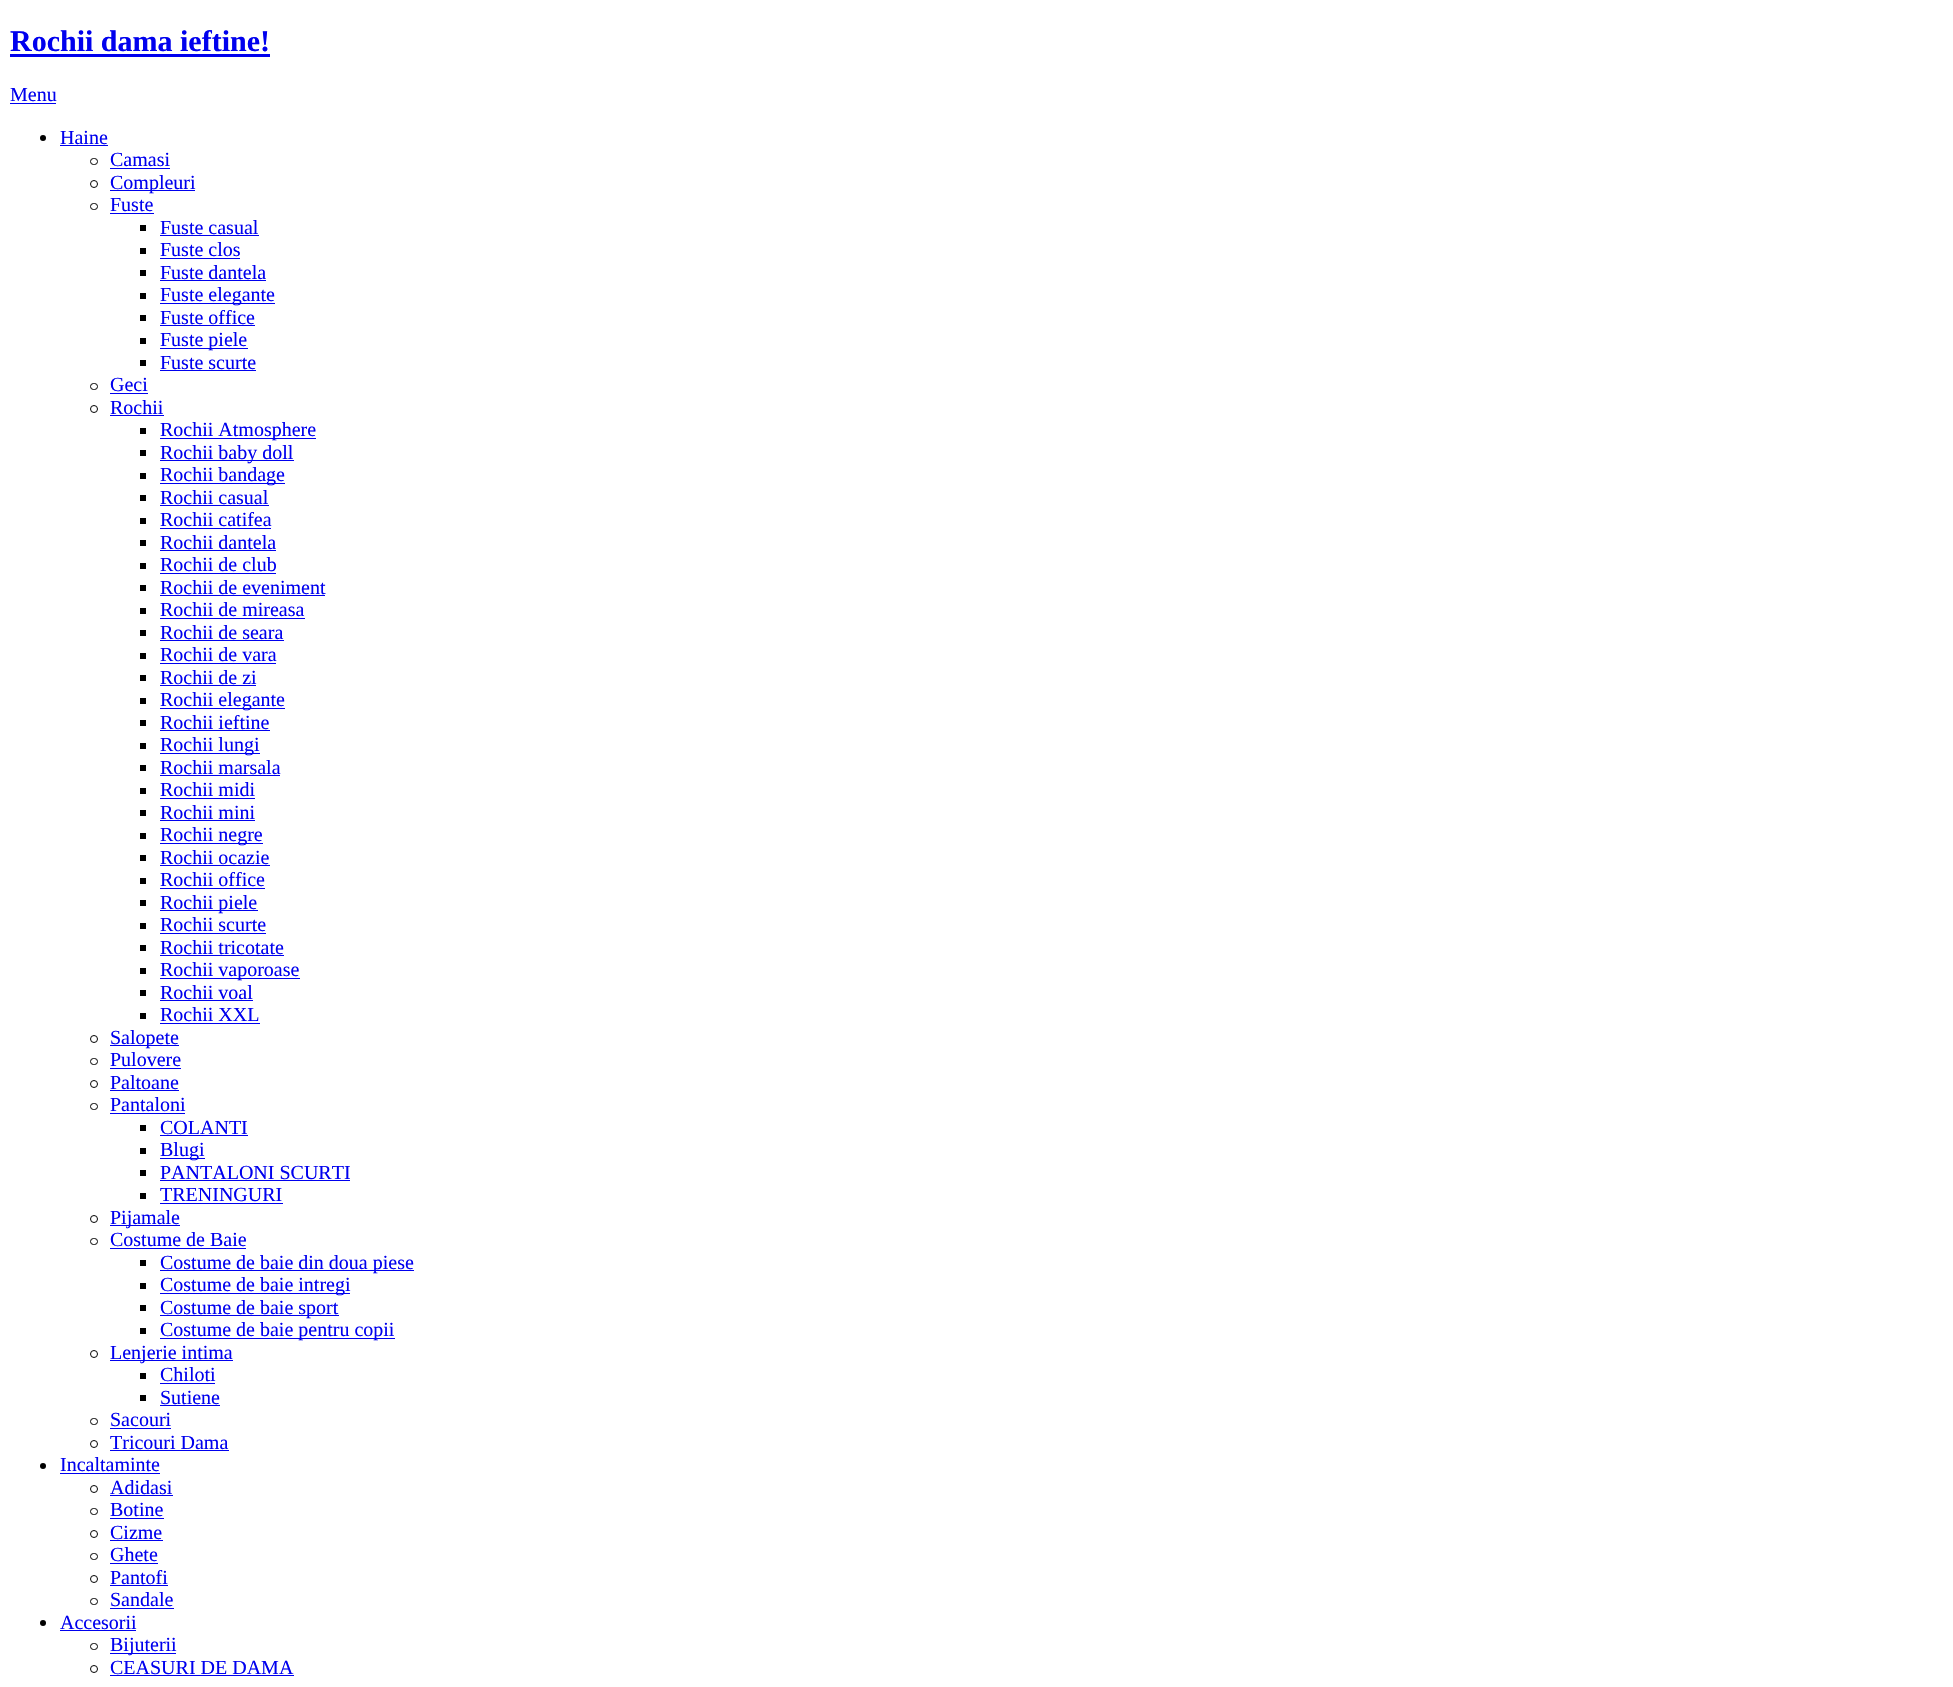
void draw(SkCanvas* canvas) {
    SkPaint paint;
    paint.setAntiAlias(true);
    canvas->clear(0xFFFFFFFF);
    SkFont font1(fontMgr->matchFamilyStyle("Liberation Serif", SkFontStyle::Bold()), 30);
    font1.setSubpixel(true);
    paint.setColor(0xFF0000EE);
    canvas->drawString("Rochii dama ieftine!", 10, 51, font1, paint);
    canvas->drawRect(SkRect::MakeXYWH(10, 54, 260, 3), paint);
    SkFont font2(fontMgr->matchFamilyStyle("Liberation Serif", SkFontStyle::Normal()), 20);
    font2.setSubpixel(true);
    canvas->drawString("Menu", 10, 101, font2, paint);
    canvas->drawRect(SkRect::MakeXYWH(10, 103, 46, 1), paint);
    paint.setColor(0xFF000000);
    canvas->drawCircle(43, 138, 3, paint);
    paint.setColor(0xFF0000EE);
    canvas->drawString("Haine", 60, 144, font2, paint);
    canvas->drawRect(SkRect::MakeXYWH(60, 145, 48, 1), paint);
    paint.setStyle(SkPaint::kStroke_Style);
    paint.setStrokeWidth(1);
    paint.setColor(0xFF000000);
    canvas->drawRoundRect(SkRect::MakeXYWH(90.5f, 158.5f, 7, 6), 3, 3, paint);
    paint.setStyle(SkPaint::kFill_Style);
    paint.setColor(0xFF0000EE);
    canvas->drawString("Camasi", 110, 166, font2, paint);
    canvas->drawRect(SkRect::MakeXYWH(110, 168, 60, 1), paint);
    paint.setStyle(SkPaint::kStroke_Style);
    paint.setColor(0xFF000000);
    canvas->drawCircle(94, 184, 3.5f, paint);
    paint.setStyle(SkPaint::kFill_Style);
    paint.setColor(0xFF0000EE);
    canvas->drawRect(SkRect::MakeXYWH(110, 190, 85, 1), paint);
    canvas->drawString("Compleuri", 110, 189, font2, paint);
    paint.setStyle(SkPaint::kStroke_Style);
    paint.setColor(0xFF000000);
    canvas->drawRoundRect(SkRect::MakeXYWH(90.5f, 203.5f, 7, 6), 3, 3, paint);
    paint.setStyle(SkPaint::kFill_Style);
    paint.setColor(0xFF0000EE);
    canvas->drawString("Fuste", 110, 211, font2, paint);
    canvas->drawRect(SkRect::MakeXYWH(110, 213, 44, 1), paint);
    paint.setColor(0xFF000000);
    canvas->drawRect(SkRect::MakeXYWH(140, 225, 6, 6), paint);
    paint.setColor(0xFF0000EE);
    canvas->drawString("Fuste casual", 160, 234, font2, paint);
    canvas->drawRect(SkRect::MakeXYWH(160, 235, 99, 1), paint);
    paint.setColor(0xFF000000);
    canvas->drawRect(SkRect::MakeXYWH(140, 248, 6, 6), paint);
    paint.setColor(0xFF0000EE);
    canvas->drawString("Fuste clos", 160, 256, font2, paint);
    canvas->drawRect(SkRect::MakeXYWH(160, 258, 80, 1), paint);
    paint.setColor(0xFF000000);
    canvas->drawRect(SkRect::MakeXYWH(140, 270, 6, 6), paint);
    paint.setColor(0xFF0000EE);
    canvas->drawString("Fuste dantela", 160, 279, font2, paint);
    canvas->drawRect(SkRect::MakeXYWH(160, 280, 106, 1), paint);
    paint.setColor(0xFF000000);
    canvas->drawRect(SkRect::MakeXYWH(140, 293, 6, 6), paint);
    paint.setColor(0xFF0000EE);
    canvas->drawRect(SkRect::MakeXYWH(160, 303, 115, 1), paint);
    canvas->drawString("Fuste elegante", 160, 301, font2, paint);
    paint.setColor(0xFF000000);
    canvas->drawRect(SkRect::MakeXYWH(140, 315, 6, 6), paint);
    paint.setColor(0xFF0000EE);
    canvas->drawString("Fuste office", 160, 324, font2, paint);
    canvas->drawRect(SkRect::MakeXYWH(160, 325, 95, 1), paint);
    paint.setColor(0xFF000000);
    canvas->drawRect(SkRect::MakeXYWH(140, 338, 6, 6), paint);
    paint.setColor(0xFF0000EE);
    canvas->drawRect(SkRect::MakeXYWH(160, 348, 88, 1), paint);
    canvas->drawString("Fuste piele", 160, 346, font2, paint);
    paint.setColor(0xFF000000);
    canvas->drawRect(SkRect::MakeXYWH(140, 360, 6, 6), paint);
    paint.setColor(0xFF0000EE);
    canvas->drawString("Fuste scurte", 160, 369, font2, paint);
    canvas->drawRect(SkRect::MakeXYWH(160, 370, 96, 1), paint);
    paint.setStyle(SkPaint::kStroke_Style);
    paint.setColor(0xFF000000);
    canvas->drawRoundRect(SkRect::MakeXYWH(90.5f, 383.5f, 7, 6), 3, 3, paint);
    paint.setStyle(SkPaint::kFill_Style);
    paint.setColor(0xFF0000EE);
    canvas->drawString("Geci", 110, 391, font2, paint);
    canvas->drawRect(SkRect::MakeXYWH(110, 393, 38, 1), paint);
    paint.setStyle(SkPaint::kStroke_Style);
    paint.setColor(0xFF000000);
    canvas->drawCircle(94, 409, 3.5f, paint);
    paint.setStyle(SkPaint::kFill_Style);
    paint.setColor(0xFF0000EE);
    canvas->drawString("Rochii", 110, 414, font2, paint);
    canvas->drawRect(SkRect::MakeXYWH(110, 415, 54, 1), paint);
    paint.setColor(0xFF000000);
    canvas->drawRect(SkRect::MakeXYWH(140, 428, 6, 6), paint);
    paint.setColor(0xFF0000EE);
    canvas->drawRect(SkRect::MakeXYWH(160, 438, 156, 1), paint);
    canvas->drawString("Rochii Atmosphere", 160, 436, font2, paint);
    paint.setColor(0xFF000000);
    canvas->drawRect(SkRect::MakeXYWH(140, 450, 6, 6), paint);
    paint.setColor(0xFF0000EE);
    canvas->drawRect(SkRect::MakeXYWH(160, 460, 134, 1), paint);
    canvas->drawString("Rochii baby doll", 160, 459, font2, paint);
    paint.setColor(0xFF000000);
    canvas->drawRect(SkRect::MakeXYWH(140, 473, 6, 6), paint);
    paint.setColor(0xFF0000EE);
    canvas->drawRect(SkRect::MakeXYWH(160, 483, 125, 1), paint);
    canvas->drawString("Rochii bandage", 160, 481, font2, paint);
    paint.setColor(0xFF000000);
    canvas->drawRect(SkRect::MakeXYWH(140, 495, 6, 6), paint);
    paint.setColor(0xFF0000EE);
    canvas->drawString("Rochii casual", 160, 504, font2, paint);
    canvas->drawRect(SkRect::MakeXYWH(160, 505, 109, 1), paint);
    paint.setColor(0xFF000000);
    canvas->drawRect(SkRect::MakeXYWH(140, 518, 6, 6), paint);
    paint.setColor(0xFF0000EE);
    canvas->drawString("Rochii catifea", 160, 526, font2, paint);
    canvas->drawRect(SkRect::MakeXYWH(160, 528, 111, 1), paint);
    paint.setColor(0xFF000000);
    canvas->drawRect(SkRect::MakeXYWH(140, 540, 6, 6), paint);
    paint.setColor(0xFF0000EE);
    canvas->drawString("Rochii dantela", 160, 549, font2, paint);
    canvas->drawRect(SkRect::MakeXYWH(160, 550, 116, 1), paint);
    paint.setColor(0xFF000000);
    canvas->drawRect(SkRect::MakeXYWH(140, 563, 6, 6), paint);
    paint.setColor(0xFF0000EE);
    canvas->drawString("Rochii de club", 160, 571, font2, paint);
    canvas->drawRect(SkRect::MakeXYWH(160, 573, 116, 1), paint);
    paint.setColor(0xFF000000);
    canvas->drawRect(SkRect::MakeXYWH(140, 585, 6, 6), paint);
    paint.setColor(0xFF0000EE);
    canvas->drawString("Rochii de eveniment", 160, 594, font2, paint);
    canvas->drawRect(SkRect::MakeXYWH(160, 595, 165, 1), paint);
    paint.setColor(0xFF000000);
    canvas->drawRect(SkRect::MakeXYWH(140, 608, 6, 6), paint);
    paint.setColor(0xFF0000EE);
    canvas->drawString("Rochii de mireasa", 160, 616, font2, paint);
    canvas->drawRect(SkRect::MakeXYWH(160, 618, 145, 1), paint);
    paint.setColor(0xFF000000);
    canvas->drawRect(SkRect::MakeXYWH(140, 630, 6, 6), paint);
    paint.setColor(0xFF0000EE);
    canvas->drawString("Rochii de seara", 160, 639, font2, paint);
    canvas->drawRect(SkRect::MakeXYWH(160, 640, 124, 1), paint);
    paint.setColor(0xFF000000);
    canvas->drawRect(SkRect::MakeXYWH(140, 653, 6, 6), paint);
    paint.setColor(0xFF0000EE);
    canvas->drawString("Rochii de vara", 160, 661, font2, paint);
    canvas->drawRect(SkRect::MakeXYWH(160, 663, 116, 1), paint);
    paint.setColor(0xFF000000);
    canvas->drawRect(SkRect::MakeXYWH(140, 675, 6, 6), paint);
    paint.setColor(0xFF0000EE);
    canvas->drawString("Rochii de zi", 160, 684, font2, paint);
    canvas->drawRect(SkRect::MakeXYWH(160, 685, 96, 1), paint);
    paint.setColor(0xFF000000);
    canvas->drawRect(SkRect::MakeXYWH(140, 698, 6, 6), paint);
    paint.setColor(0xFF0000EE);
    canvas->drawRect(SkRect::MakeXYWH(160, 708, 125, 1), paint);
    canvas->drawString("Rochii elegante", 160, 706, font2, paint);
    paint.setColor(0xFF000000);
    canvas->drawRect(SkRect::MakeXYWH(140, 720, 6, 6), paint);
    paint.setColor(0xFF0000EE);
    canvas->drawString("Rochii ieftine", 160, 729, font2, paint);
    canvas->drawRect(SkRect::MakeXYWH(160, 730, 110, 1), paint);
    paint.setColor(0xFF000000);
    canvas->drawRect(SkRect::MakeXYWH(140, 743, 6, 6), paint);
    paint.setColor(0xFF0000EE);
    canvas->drawRect(SkRect::MakeXYWH(160, 753, 100, 1), paint);
    canvas->drawString("Rochii lungi", 160, 751, font2, paint);
    paint.setColor(0xFF000000);
    canvas->drawRect(SkRect::MakeXYWH(140, 765, 6, 6), paint);
    paint.setColor(0xFF0000EE);
    canvas->drawString("Rochii marsala", 160, 774, font2, paint);
    canvas->drawRect(SkRect::MakeXYWH(160, 775, 120, 1), paint);
    paint.setColor(0xFF000000);
    canvas->drawRect(SkRect::MakeXYWH(140, 788, 6, 6), paint);
    paint.setColor(0xFF0000EE);
    canvas->drawString("Rochii midi", 160, 796, font2, paint);
    canvas->drawRect(SkRect::MakeXYWH(160, 798, 95, 1), paint);
    paint.setColor(0xFF000000);
    canvas->drawRect(SkRect::MakeXYWH(140, 810, 6, 6), paint);
    paint.setColor(0xFF0000EE);
    canvas->drawString("Rochii mini", 160, 819, font2, paint);
    canvas->drawRect(SkRect::MakeXYWH(160, 820, 95, 1), paint);
    paint.setColor(0xFF000000);
    canvas->drawRect(SkRect::MakeXYWH(140, 833, 6, 6), paint);
    paint.setColor(0xFF0000EE);
    canvas->drawRect(SkRect::MakeXYWH(160, 843, 103, 1), paint);
    canvas->drawString("Rochii negre", 160, 841, font2, paint);
    paint.setColor(0xFF000000);
    canvas->drawRect(SkRect::MakeXYWH(140, 855, 6, 6), paint);
    paint.setColor(0xFF0000EE);
    canvas->drawString("Rochii ocazie", 160, 864, font2, paint);
    canvas->drawRect(SkRect::MakeXYWH(160, 865, 110, 1), paint);
    paint.setColor(0xFF000000);
    canvas->drawRect(SkRect::MakeXYWH(140, 878, 6, 6), paint);
    paint.setColor(0xFF0000EE);
    canvas->drawString("Rochii office", 160, 886, font2, paint);
    canvas->drawRect(SkRect::MakeXYWH(160, 888, 105, 1), paint);
    paint.setColor(0xFF000000);
    canvas->drawRect(SkRect::MakeXYWH(140, 900, 6, 6), paint);
    paint.setColor(0xFF0000EE);
    canvas->drawRect(SkRect::MakeXYWH(160, 910, 98, 1), paint);
    canvas->drawString("Rochii piele", 160, 909, font2, paint);
    paint.setColor(0xFF000000);
    canvas->drawRect(SkRect::MakeXYWH(140, 923, 6, 6), paint);
    paint.setColor(0xFF0000EE);
    canvas->drawString("Rochii scurte", 160, 931, font2, paint);
    canvas->drawRect(SkRect::MakeXYWH(160, 933, 106, 1), paint);
    paint.setColor(0xFF000000);
    canvas->drawRect(SkRect::MakeXYWH(140, 945, 6, 6), paint);
    paint.setColor(0xFF0000EE);
    canvas->drawString("Rochii tricotate", 160, 954, font2, paint);
    canvas->drawRect(SkRect::MakeXYWH(160, 955, 124, 1), paint);
    paint.setColor(0xFF000000);
    canvas->drawRect(SkRect::MakeXYWH(140, 968, 6, 6), paint);
    paint.setColor(0xFF0000EE);
    canvas->drawRect(SkRect::MakeXYWH(160, 978, 140, 1), paint);
    canvas->drawString("Rochii vaporoase", 160, 976, font2, paint);
    paint.setColor(0xFF000000);
    canvas->drawRect(SkRect::MakeXYWH(140, 990, 6, 6), paint);
    paint.setColor(0xFF0000EE);
    canvas->drawString("Rochii voal", 160, 999, font2, paint);
    canvas->drawRect(SkRect::MakeXYWH(160, 1000, 93, 1), paint);
    paint.setColor(0xFF000000);
    canvas->drawRect(SkRect::MakeXYWH(140, 1013, 6, 6), paint);
    paint.setColor(0xFF0000EE);
    canvas->drawString("Rochii XXL", 160, 1021, font2, paint);
    canvas->drawRect(SkRect::MakeXYWH(160, 1023, 100, 1), paint);
    paint.setStyle(SkPaint::kStroke_Style);
    paint.setColor(0xFF000000);
    canvas->drawCircle(94, 1039, 3.5f, paint);
    paint.setStyle(SkPaint::kFill_Style);
    paint.setColor(0xFF0000EE);
    canvas->drawRect(SkRect::MakeXYWH(110, 1045, 69, 1), paint);
    canvas->drawString("Salopete", 110, 1044, font2, paint);
    paint.setStyle(SkPaint::kStroke_Style);
    paint.setColor(0xFF000000);
    canvas->drawRoundRect(SkRect::MakeXYWH(90.5f, 1058.5f, 7, 6), 3, 3, paint);
    paint.setStyle(SkPaint::kFill_Style);
    paint.setColor(0xFF0000EE);
    canvas->drawString("Pulovere", 110, 1066, font2, paint);
    canvas->drawRect(SkRect::MakeXYWH(110, 1068, 71, 1), paint);
    paint.setStyle(SkPaint::kStroke_Style);
    paint.setColor(0xFF000000);
    canvas->drawCircle(94, 1084, 3.5f, paint);
    paint.setStyle(SkPaint::kFill_Style);
    paint.setColor(0xFF0000EE);
    canvas->drawString("Paltoane", 110, 1089, font2, paint);
    canvas->drawRect(SkRect::MakeXYWH(110, 1090, 69, 1), paint);
    paint.setStyle(SkPaint::kStroke_Style);
    paint.setColor(0xFF000000);
    canvas->drawRoundRect(SkRect::MakeXYWH(90.5f, 1103.5f, 7, 6), 3, 3, paint);
    paint.setStyle(SkPaint::kFill_Style);
    paint.setColor(0xFF0000EE);
    canvas->drawString("Pantaloni", 110, 1111, font2, paint);
    canvas->drawRect(SkRect::MakeXYWH(110, 1113, 75, 1), paint);
    paint.setColor(0xFF000000);
    canvas->drawRect(SkRect::MakeXYWH(140, 1125, 6, 6), paint);
    paint.setColor(0xFF0000EE);
    canvas->drawString("COLANTI", 160, 1134, font2, paint);
    canvas->drawRect(SkRect::MakeXYWH(160, 1135, 88, 1), paint);
    paint.setColor(0xFF000000);
    canvas->drawRect(SkRect::MakeXYWH(140, 1148, 6, 6), paint);
    paint.setColor(0xFF0000EE);
    canvas->drawRect(SkRect::MakeXYWH(160, 1158, 45, 1), paint);
    canvas->drawString("Blugi", 160, 1156, font2, paint);
    paint.setColor(0xFF000000);
    canvas->drawRect(SkRect::MakeXYWH(140, 1170, 6, 6), paint);
    paint.setColor(0xFF0000EE);
    canvas->drawString("PANTALONI SCURTI", 160, 1179, font2, paint);
    canvas->drawRect(SkRect::MakeXYWH(160, 1180, 190, 1), paint);
    paint.setColor(0xFF000000);
    canvas->drawRect(SkRect::MakeXYWH(140, 1193, 6, 6), paint);
    paint.setColor(0xFF0000EE);
    canvas->drawString("TRENINGURI", 160, 1201, font2, paint);
    canvas->drawRect(SkRect::MakeXYWH(160, 1203, 123, 1), paint);
    paint.setStyle(SkPaint::kStroke_Style);
    paint.setColor(0xFF000000);
    canvas->drawCircle(94, 1219, 3.5f, paint);
    paint.setStyle(SkPaint::kFill_Style);
    paint.setColor(0xFF0000EE);
    canvas->drawRect(SkRect::MakeXYWH(110, 1225, 70, 1), paint);
    canvas->drawString("Pijamale", 110, 1224, font2, paint);
    paint.setStyle(SkPaint::kStroke_Style);
    paint.setColor(0xFF000000);
    canvas->drawRoundRect(SkRect::MakeXYWH(90.5f, 1238.5f, 7, 6), 3, 3, paint);
    paint.setStyle(SkPaint::kFill_Style);
    paint.setColor(0xFF0000EE);
    canvas->drawString("Costume de Baie", 110, 1246, font2, paint);
    canvas->drawRect(SkRect::MakeXYWH(110, 1248, 136, 1), paint);
    paint.setColor(0xFF000000);
    canvas->drawRect(SkRect::MakeXYWH(140, 1260, 6, 6), paint);
    paint.setColor(0xFF0000EE);
    canvas->drawRect(SkRect::MakeXYWH(160, 1270, 254, 1), paint);
    canvas->drawString("Costume de baie din doua piese", 160, 1269, font2, paint);
    paint.setColor(0xFF000000);
    canvas->drawRect(SkRect::MakeXYWH(140, 1283, 6, 6), paint);
    paint.setColor(0xFF0000EE);
    canvas->drawRect(SkRect::MakeXYWH(160, 1293, 190, 1), paint);
    canvas->drawString("Costume de baie intregi", 160, 1291, font2, paint);
    paint.setColor(0xFF000000);
    canvas->drawRect(SkRect::MakeXYWH(140, 1305, 6, 6), paint);
    paint.setColor(0xFF0000EE);
    canvas->drawRect(SkRect::MakeXYWH(160, 1315, 179, 1), paint);
    canvas->drawString("Costume de baie sport", 160, 1314, font2, paint);
    paint.setColor(0xFF000000);
    canvas->drawRect(SkRect::MakeXYWH(140, 1328, 6, 6), paint);
    paint.setColor(0xFF0000EE);
    canvas->drawRect(SkRect::MakeXYWH(160, 1338, 235, 1), paint);
    canvas->drawString("Costume de baie pentru copii", 160, 1336, font2, paint);
    paint.setStyle(SkPaint::kStroke_Style);
    paint.setColor(0xFF000000);
    canvas->drawCircle(94, 1354, 3.5f, paint);
    paint.setStyle(SkPaint::kFill_Style);
    paint.setColor(0xFF0000EE);
    canvas->drawRect(SkRect::MakeXYWH(110, 1360, 123, 1), paint);
    canvas->drawString("Lenjerie intima", 110, 1359, font2, paint);
    paint.setColor(0xFF000000);
    canvas->drawRect(SkRect::MakeXYWH(140, 1373, 6, 6), paint);
    paint.setColor(0xFF0000EE);
    canvas->drawString("Chiloti", 160, 1381, font2, paint);
    canvas->drawRect(SkRect::MakeXYWH(160, 1383, 55, 1), paint);
    paint.setColor(0xFF000000);
    canvas->drawRect(SkRect::MakeXYWH(140, 1395, 6, 6), paint);
    paint.setColor(0xFF0000EE);
    canvas->drawString("Sutiene", 160, 1404, font2, paint);
    canvas->drawRect(SkRect::MakeXYWH(160, 1405, 60, 1), paint);
    paint.setStyle(SkPaint::kStroke_Style);
    paint.setColor(0xFF000000);
    canvas->drawRoundRect(SkRect::MakeXYWH(90.5f, 1418.5f, 7, 6), 3, 3, paint);
    paint.setStyle(SkPaint::kFill_Style);
    paint.setColor(0xFF0000EE);
    canvas->drawString("Sacouri", 110, 1426, font2, paint);
    canvas->drawRect(SkRect::MakeXYWH(110, 1428, 61, 1), paint);
    paint.setStyle(SkPaint::kStroke_Style);
    paint.setColor(0xFF000000);
    canvas->drawCircle(94, 1444, 3.5f, paint);
    paint.setStyle(SkPaint::kFill_Style);
    paint.setColor(0xFF0000EE);
    canvas->drawString("Tricouri Dama", 110, 1449, font2, paint);
    canvas->drawRect(SkRect::MakeXYWH(110, 1450, 119, 1), paint);
    paint.setColor(0xFF000000);
    canvas->drawCircle(43, 1466, 3, paint);
    paint.setColor(0xFF0000EE);
    canvas->drawString("Incaltaminte", 60, 1471, font2, paint);
    canvas->drawRect(SkRect::MakeXYWH(60, 1473, 100, 1), paint);
    paint.setStyle(SkPaint::kStroke_Style);
    paint.setColor(0xFF000000);
    canvas->drawCircle(94, 1489, 3.5f, paint);
    paint.setStyle(SkPaint::kFill_Style);
    paint.setColor(0xFF0000EE);
    canvas->drawString("Adidasi", 110, 1494, font2, paint);
    canvas->drawRect(SkRect::MakeXYWH(110, 1495, 63, 1), paint);
    paint.setStyle(SkPaint::kStroke_Style);
    paint.setColor(0xFF000000);
    canvas->drawRoundRect(SkRect::MakeXYWH(90.5f, 1508.5f, 7, 6), 3, 3, paint);
    paint.setStyle(SkPaint::kFill_Style);
    paint.setColor(0xFF0000EE);
    canvas->drawString("Botine", 110, 1516, font2, paint);
    canvas->drawRect(SkRect::MakeXYWH(110, 1518, 54, 1), paint);
    paint.setStyle(SkPaint::kStroke_Style);
    paint.setColor(0xFF000000);
    canvas->drawCircle(94, 1534, 3.5f, paint);
    paint.setStyle(SkPaint::kFill_Style);
    paint.setColor(0xFF0000EE);
    canvas->drawString("Cizme", 110, 1539, font2, paint);
    canvas->drawRect(SkRect::MakeXYWH(110, 1540, 53, 1), paint);
    paint.setStyle(SkPaint::kStroke_Style);
    paint.setColor(0xFF000000);
    canvas->drawRoundRect(SkRect::MakeXYWH(90.5f, 1553.5f, 7, 6), 3, 3, paint);
    paint.setStyle(SkPaint::kFill_Style);
    paint.setColor(0xFF0000EE);
    canvas->drawString("Ghete", 110, 1561, font2, paint);
    canvas->drawRect(SkRect::MakeXYWH(110, 1563, 48, 1), paint);
    paint.setStyle(SkPaint::kStroke_Style);
    paint.setColor(0xFF000000);
    canvas->drawCircle(94, 1579, 3.5f, paint);
    paint.setStyle(SkPaint::kFill_Style);
    paint.setColor(0xFF0000EE);
    canvas->drawString("Pantofi", 110, 1584, font2, paint);
    canvas->drawRect(SkRect::MakeXYWH(110, 1585, 58, 1), paint);
    paint.setStyle(SkPaint::kStroke_Style);
    paint.setColor(0xFF000000);
    canvas->drawRoundRect(SkRect::MakeXYWH(90.5f, 1598.5f, 7, 6), 3, 3, paint);
    paint.setStyle(SkPaint::kFill_Style);
    paint.setColor(0xFF0000EE);
    canvas->drawString("Sandale", 110, 1606, font2, paint);
    canvas->drawRect(SkRect::MakeXYWH(110, 1608, 64, 1), paint);
    paint.setColor(0xFF000000);
    canvas->drawCircle(43, 1623, 3, paint);
    paint.setColor(0xFF0000EE);
    canvas->drawString("Accesorii", 60, 1629, font2, paint);
    canvas->drawRect(SkRect::MakeXYWH(60, 1630, 76, 1), paint);
    paint.setStyle(SkPaint::kStroke_Style);
    paint.setColor(0xFF000000);
    canvas->drawRoundRect(SkRect::MakeXYWH(90.5f, 1643.5f, 7, 6), 3, 3, paint);
    paint.setStyle(SkPaint::kFill_Style);
    paint.setColor(0xFF0000EE);
    canvas->drawRect(SkRect::MakeXYWH(110, 1653, 66, 1), paint);
    canvas->drawString("Bijuterii", 110, 1651, font2, paint);
    paint.setStyle(SkPaint::kStroke_Style);
    paint.setColor(0xFF000000);
    canvas->drawCircle(94, 1669, 3.5f, paint);
    paint.setStyle(SkPaint::kFill_Style);
    paint.setColor(0xFF0000EE);
    canvas->drawString("CEASURI DE DAMA", 110, 1674, font2, paint);
    canvas->drawRect(SkRect::MakeXYWH(110, 1675, 184, 1), paint);
}
